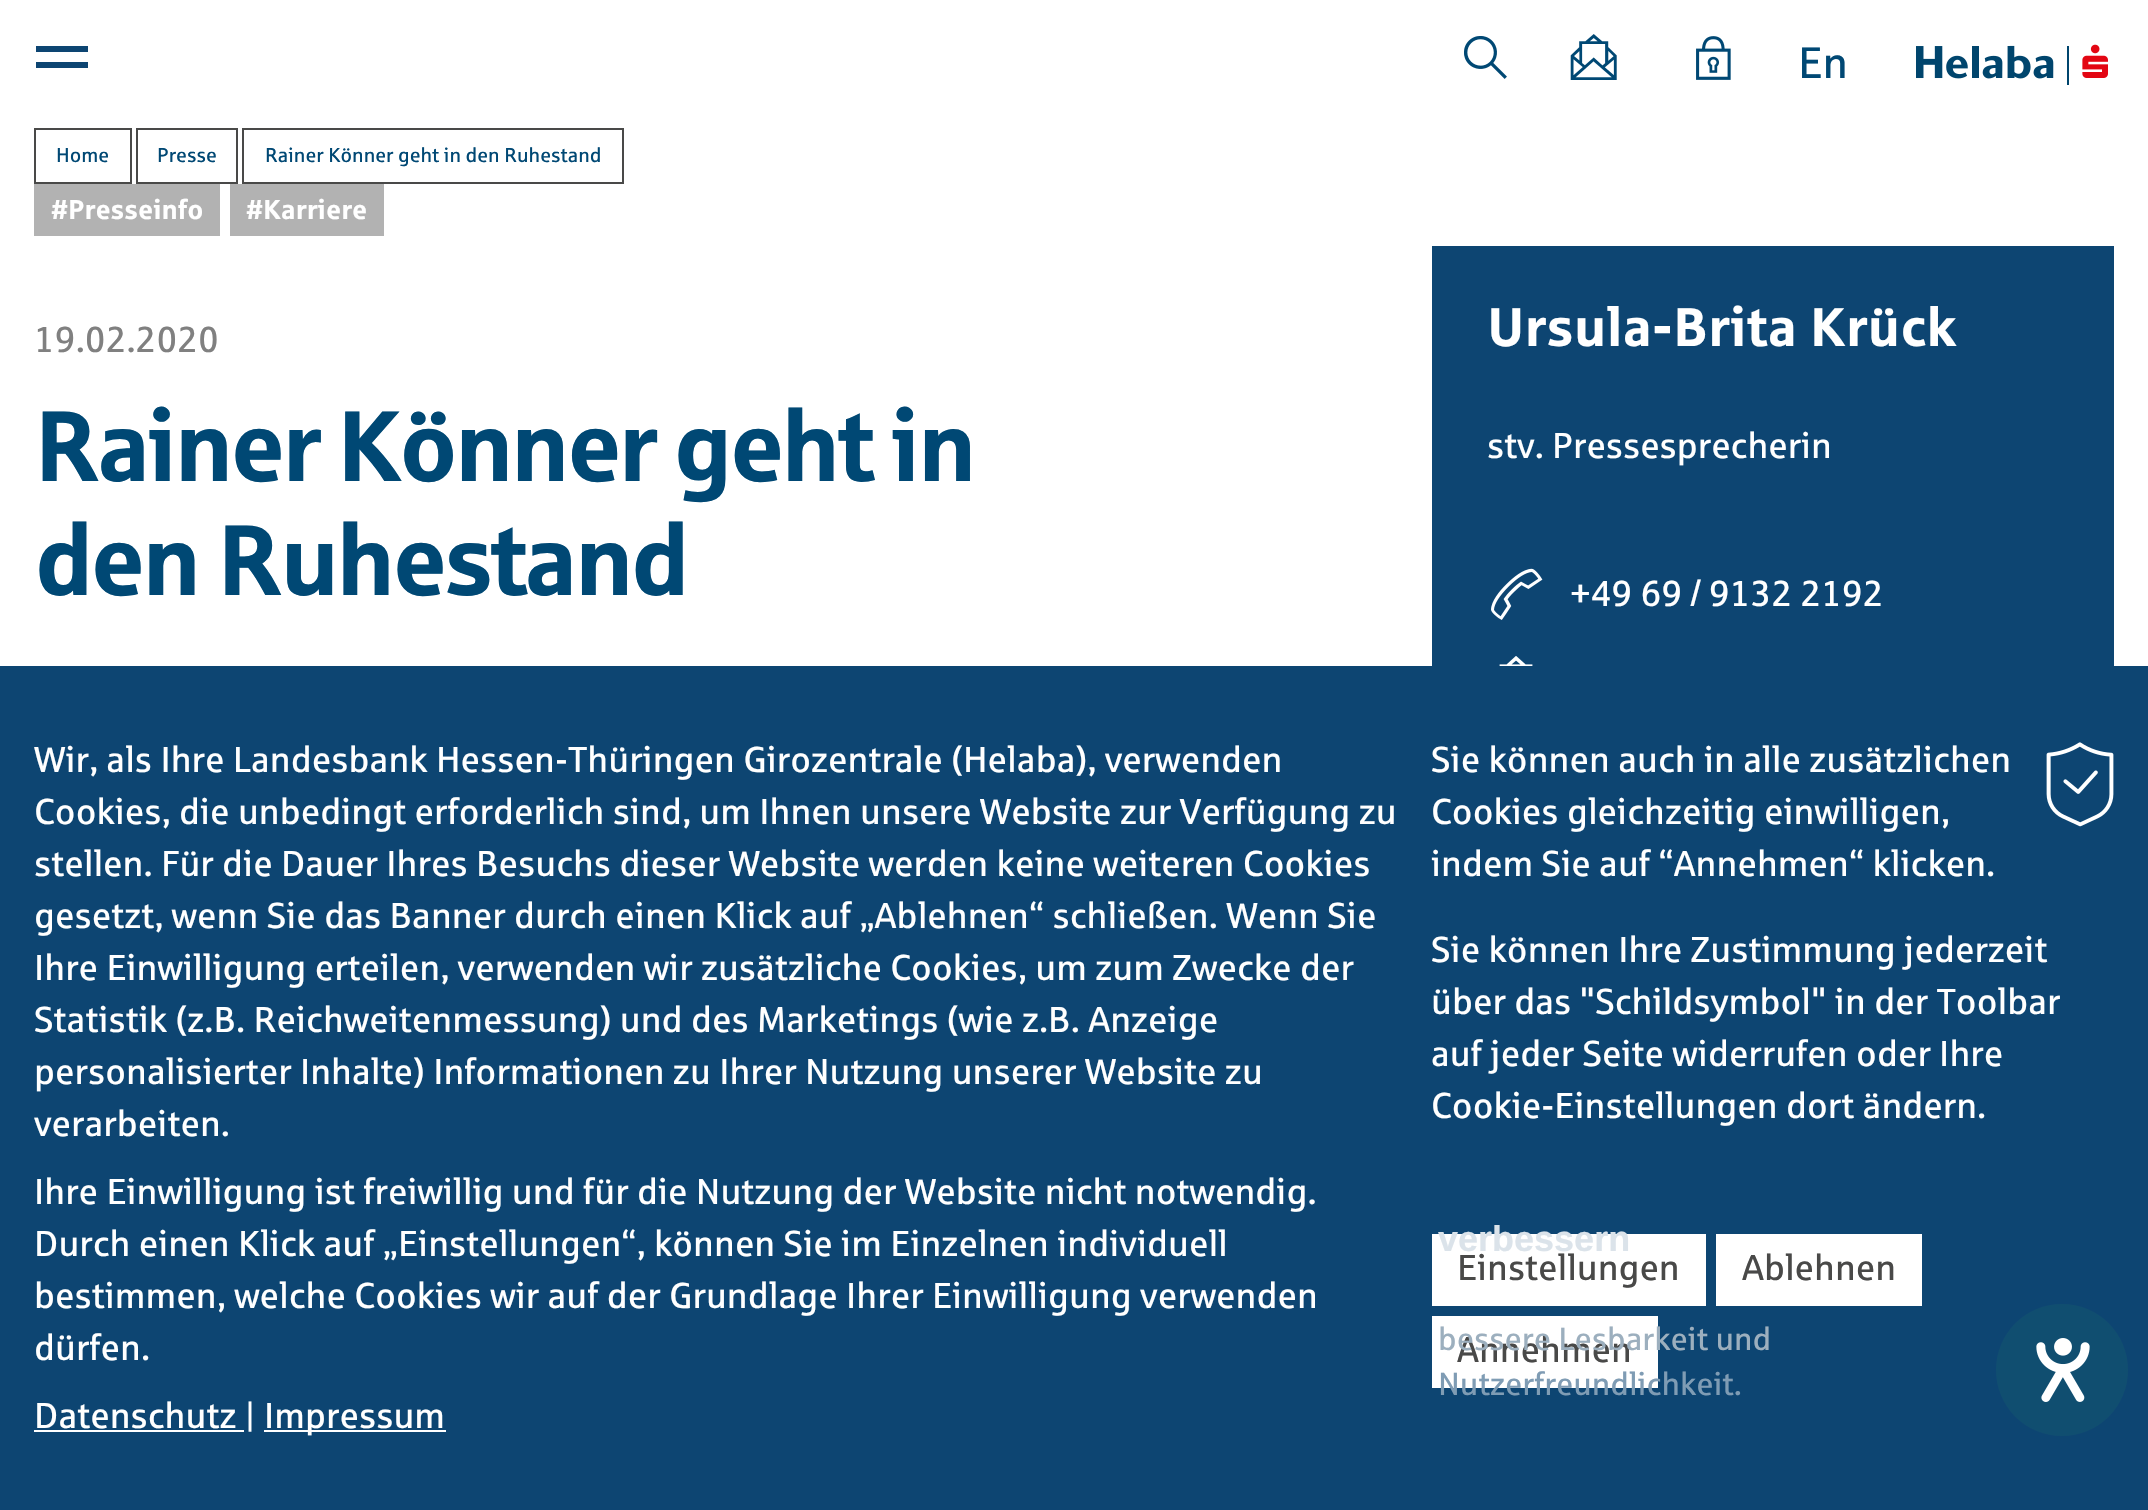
void draw(SkCanvas* canvas) {
    SkPaint paint;
    paint.setAntiAlias(true);
    auto spacedText = [&](const char* s, float x, float y, const SkFont& font, const SkPaint& ink, float letter, float word) {
        std::vector<SkGlyphID> glyphs(font.countText(s, strlen(s), SkTextEncoding::kUTF8));
        std::vector<float> xs(glyphs.size());
        font.textToGlyphs(s, strlen(s), SkTextEncoding::kUTF8, glyphs);
        font.getXPos(glyphs, xs, x);
        float extra = 0;
        for (size_t i = 0; i < glyphs.size(); i++) {
            xs[i] += extra;
            extra += letter + word * (glyphs[i] == font.unicharToGlyph(' '));
        }
        canvas->drawTextBlob(SkTextBlob::MakeFromPosHGlyphs(glyphs, xs, y, font), 0, 0, ink);
    };
    canvas->clear(0xFFFFFFFF);
    paint.setColor(0xFF0D4572);
    canvas->drawRect(SkRect::MakeXYWH(36, 46, 52, 6), paint);
    canvas->drawRect(SkRect::MakeXYWH(36, 62, 52, 6), paint);
    canvas->drawImageRect(SkImages::DeferredFromEncodedData(SkData::MakeFromFileName("img1.png")), SkRect::MakeXYWH(1464, 36, 43, 43), SkSamplingOptions());
    canvas->drawImageRect(SkImages::DeferredFromEncodedData(SkData::MakeFromFileName("img2.png")), SkRect::MakeXYWH(1570, 34, 47, 46), SkSamplingOptions());
    canvas->drawImageRect(SkImages::DeferredFromEncodedData(SkData::MakeFromFileName("img3.png")), SkRect::MakeXYWH(1696, 36, 35, 44), SkSamplingOptions());
    SkFont font1(fontMgr->matchFamilyStyle("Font", SkFontStyle::Normal()), 44);
    font1.setSubpixel(true);
    paint.setColor(0xFF004874);
    canvas->drawString("En", 1798, 78, font1, paint);
    canvas->drawImageRect(SkImages::DeferredFromEncodedData(SkData::MakeFromFileName("img4.png")), SkRect::MakeXYWH(1916, 44, 192, 41), SkSamplingOptions());
    paint.setStyle(SkPaint::kStroke_Style);
    paint.setStrokeWidth(2);
    paint.setColor(0xFF494948);
    canvas->drawRect(SkRect::MakeXYWH(35, 129, 96, 54), paint);
    SkFont font2(fontMgr->matchFamilyStyle("Font", SkFontStyle::Normal()), 20);
    font2.setSubpixel(true);
    paint.setStyle(SkPaint::kFill_Style);
    paint.setColor(0xFF004874);
    canvas->drawString("Home", 56, 162, font2, paint);
    paint.setStyle(SkPaint::kStroke_Style);
    paint.setColor(0xFF494948);
    canvas->drawRect(SkRect::MakeXYWH(137, 129, 100, 54), paint);
    paint.setStyle(SkPaint::kFill_Style);
    paint.setColor(0xFF004874);
    canvas->drawString("Presse", 157, 162, font2, paint);
    paint.setStyle(SkPaint::kStroke_Style);
    paint.setColor(0xFF494948);
    canvas->drawRect(SkRect::MakeXYWH(243, 129, 380, 54), paint);
    paint.setStyle(SkPaint::kFill_Style);
    paint.setColor(0xFF004874);
    canvas->drawString("Rainer Könner geht in den Ruhestand", 265, 162, font2, paint);
    paint.setColor(0xFFB2B2B2);
    canvas->drawRect(SkRect::MakeXYWH(34, 184, 186, 52), paint);
    SkFont font3(fontMgr->matchFamilyStyle("Font", SkFontStyle::Bold()), 27.25f);
    font3.setSubpixel(true);
    paint.setColor(0xFFFFFFFF);
    canvas->drawString("#Presseinfo", 51, 219, font3, paint);
    paint.setColor(0xFFB2B2B2);
    canvas->drawRect(SkRect::MakeXYWH(230, 184, 154, 52), paint);
    paint.setColor(0xFFFFFFFF);
    canvas->drawString("#Karriere", 246, 219, font3, paint);
    SkFont font4(fontMgr->matchFamilyStyle("Font", SkFontStyle::Normal()), 36);
    font4.setSubpixel(true);
    paint.setColor(0xFF808080);
    spacedText("19.02.2020", 34, 352, font4, paint, 0.05f, 0);
    SkFont font5(fontMgr->matchFamilyStyle("Font", SkFontStyle::Bold()), 100);
    font5.setSubpixel(true);
    paint.setColor(0xFF004874);
    spacedText("Rainer Könner geht in", 34, 481, font5, paint, -4, 0);
    spacedText("den Ruhestand", 34, 595, font5, paint, -4, 0);
    paint.setColor(0xFF0D4572);
    canvas->drawRect(SkRect::MakeXYWH(1432, 246, 682, 420), paint);
    SkFont font6(fontMgr->matchFamilyStyle("Font", SkFontStyle::Bold()), 54.5f);
    font6.setSubpixel(true);
    paint.setColor(0xFFFFFFFF);
    canvas->drawString("Ursula-Brita Krück", 1487, 346, font6, paint);
    canvas->drawString("stv. Pressesprecherin", 1487, 458, font4, paint);
    canvas->drawImageRect(SkImages::DeferredFromEncodedData(SkData::MakeFromFileName("img5.png")), SkRect::MakeXYWH(1491, 568, 52, 52), SkSamplingOptions());
    canvas->drawString("+49 69 / 9132 2192", 1570, 606, font4, paint);
    canvas->drawImageRect(SkImages::DeferredFromEncodedData(SkData::MakeFromFileName("img6.png")), SkRect::MakeXYWH(1499, 656, 34, 10), SkSamplingOptions());
    paint.setColor(0xFF0D4572);
    canvas->drawRect(SkRect::MakeXYWH(0, 666, 2148, 844), paint);
    paint.setColor(0xFFFFFFFF);
    spacedText("Wir, als Ihre Landesbank Hessen-Thüringen Girozentrale (Helaba), verwenden", 34, 772, font4, paint, 0.05f, 0);
    spacedText("Cookies, die unbedingt erforderlich sind, um Ihnen unsere Website zur Verfügung zu", 34, 824, font4, paint, 0.05f, 0);
    spacedText("stellen. Für die Dauer Ihres Besuchs dieser Website werden keine weiteren Cookies", 34, 876, font4, paint, 0.05f, 0);
    spacedText("gesetzt, wenn Sie das Banner durch einen Klick auf „Ablehnen“ schließen. Wenn Sie", 34, 928, font4, paint, 0.05f, 0);
    spacedText("Ihre Einwilligung erteilen, verwenden wir zusätzliche Cookies, um zum Zwecke der", 34, 980, font4, paint, 0.05f, 0);
    spacedText("Statistik (z.B. Reichweitenmessung) und des Marketings (wie z.B. Anzeige", 34, 1032, font4, paint, 0.05f, 0);
    spacedText("personalisierter Inhalte) Informationen zu Ihrer Nutzung unserer Website zu", 34, 1084, font4, paint, 0.05f, 0);
    spacedText("verarbeiten.", 34, 1136, font4, paint, 0.05f, 0);
    spacedText("Ihre Einwilligung ist freiwillig und für die Nutzung der Website nicht notwendig.", 34, 1204, font4, paint, 0.05f, 0);
    spacedText("Durch einen Klick auf „Einstellungen“, können Sie im Einzelnen individuell", 34, 1256, font4, paint, 0.05f, 0);
    spacedText("bestimmen, welche Cookies wir auf der Grundlage Ihrer Einwilligung verwenden", 34, 1308, font4, paint, 0.05f, 0);
    spacedText("dürfen.", 34, 1360, font4, paint, 0.05f, 0);
    canvas->drawRect(SkRect::MakeXYWH(34, 1430, 210, 2), paint);
    spacedText("Datenschutz |", 34, 1428, font4, paint, 0.05f, 0);
    canvas->drawRect(SkRect::MakeXYWH(264, 1430, 182, 2), paint);
    spacedText("Impressum", 264, 1428, font4, paint, 0.05f, 0);
    spacedText("Sie können auch in alle zusätzlichen", 1431, 772, font4, paint, 0.05f, 0);
    spacedText("Cookies gleichzeitig einwilligen,", 1431, 824, font4, paint, 0.05f, 0);
    spacedText("indem Sie auf “Annehmen“ klicken.", 1431, 876, font4, paint, 0.05f, 0);
    spacedText("Sie können Ihre Zustimmung jederzeit", 1431, 962, font4, paint, 0.05f, 0);
    spacedText("über das \"Schildsymbol\" in der Toolbar", 1431, 1014, font4, paint, 0.05f, 0);
    spacedText("auf jeder Seite widerrufen oder Ihre", 1431, 1066, font4, paint, 0.05f, 0);
    spacedText("Cookie-Einstellungen dort ändern.", 1431, 1118, font4, paint, 0.05f, 0);
    canvas->drawImageRect(SkImages::DeferredFromEncodedData(SkData::MakeFromFileName("img7.png")), SkRect::MakeXYWH(2046, 742, 68, 85), SkSamplingOptions());
    canvas->drawRect(SkRect::MakeXYWH(1432, 1234, 274, 72), paint);
    paint.setColor(0xFF494948);
    canvas->drawString("Einstellungen", 1457, 1280, font4, paint);
    paint.setColor(0xFFFFFFFF);
    canvas->drawRect(SkRect::MakeXYWH(1716, 1234, 206, 72), paint);
    paint.setColor(0xFF494948);
    canvas->drawString("Ablehnen", 1742, 1280, font4, paint);
    paint.setColor(0xFFFFFFFF);
    canvas->drawRect(SkRect::MakeXYWH(1432, 1316, 226, 72), paint);
    paint.setColor(0xFF494948);
    canvas->drawString("Annehmen", 1457, 1362, font4, paint);
    SkFont font7(fontMgr->matchFamilyStyle("Liberation Sans", SkFontStyle::Bold()), 36);
    font7.setSubpixel(true);
    paint.setColor(0xFFDBE3EA);
    canvas->drawString("verbessern", 1438, 1251, font7, paint);
    SkFont font8(fontMgr->matchFamilyStyle("Font", SkFontStyle::Normal()), 32);
    font8.setSubpixel(true);
    paint.setColor(0xFF9CAFBE);
    canvas->drawString("bessere Lesbarkeit und", 1438, 1350, font8, paint);
    paint.setColor(0xFF7F9CB4);
    canvas->drawString("Nutzerfreundlichkeit.", 1438, 1395, font8, paint);
    paint.setColor(0xFF104E70);
    canvas->drawCircle(2062, 1370, 66, paint);
    canvas->drawImageRect(SkImages::DeferredFromEncodedData(SkData::MakeFromFileName("img8.png")), SkRect::MakeXYWH(2036, 1338, 54, 64), SkSamplingOptions());
}
